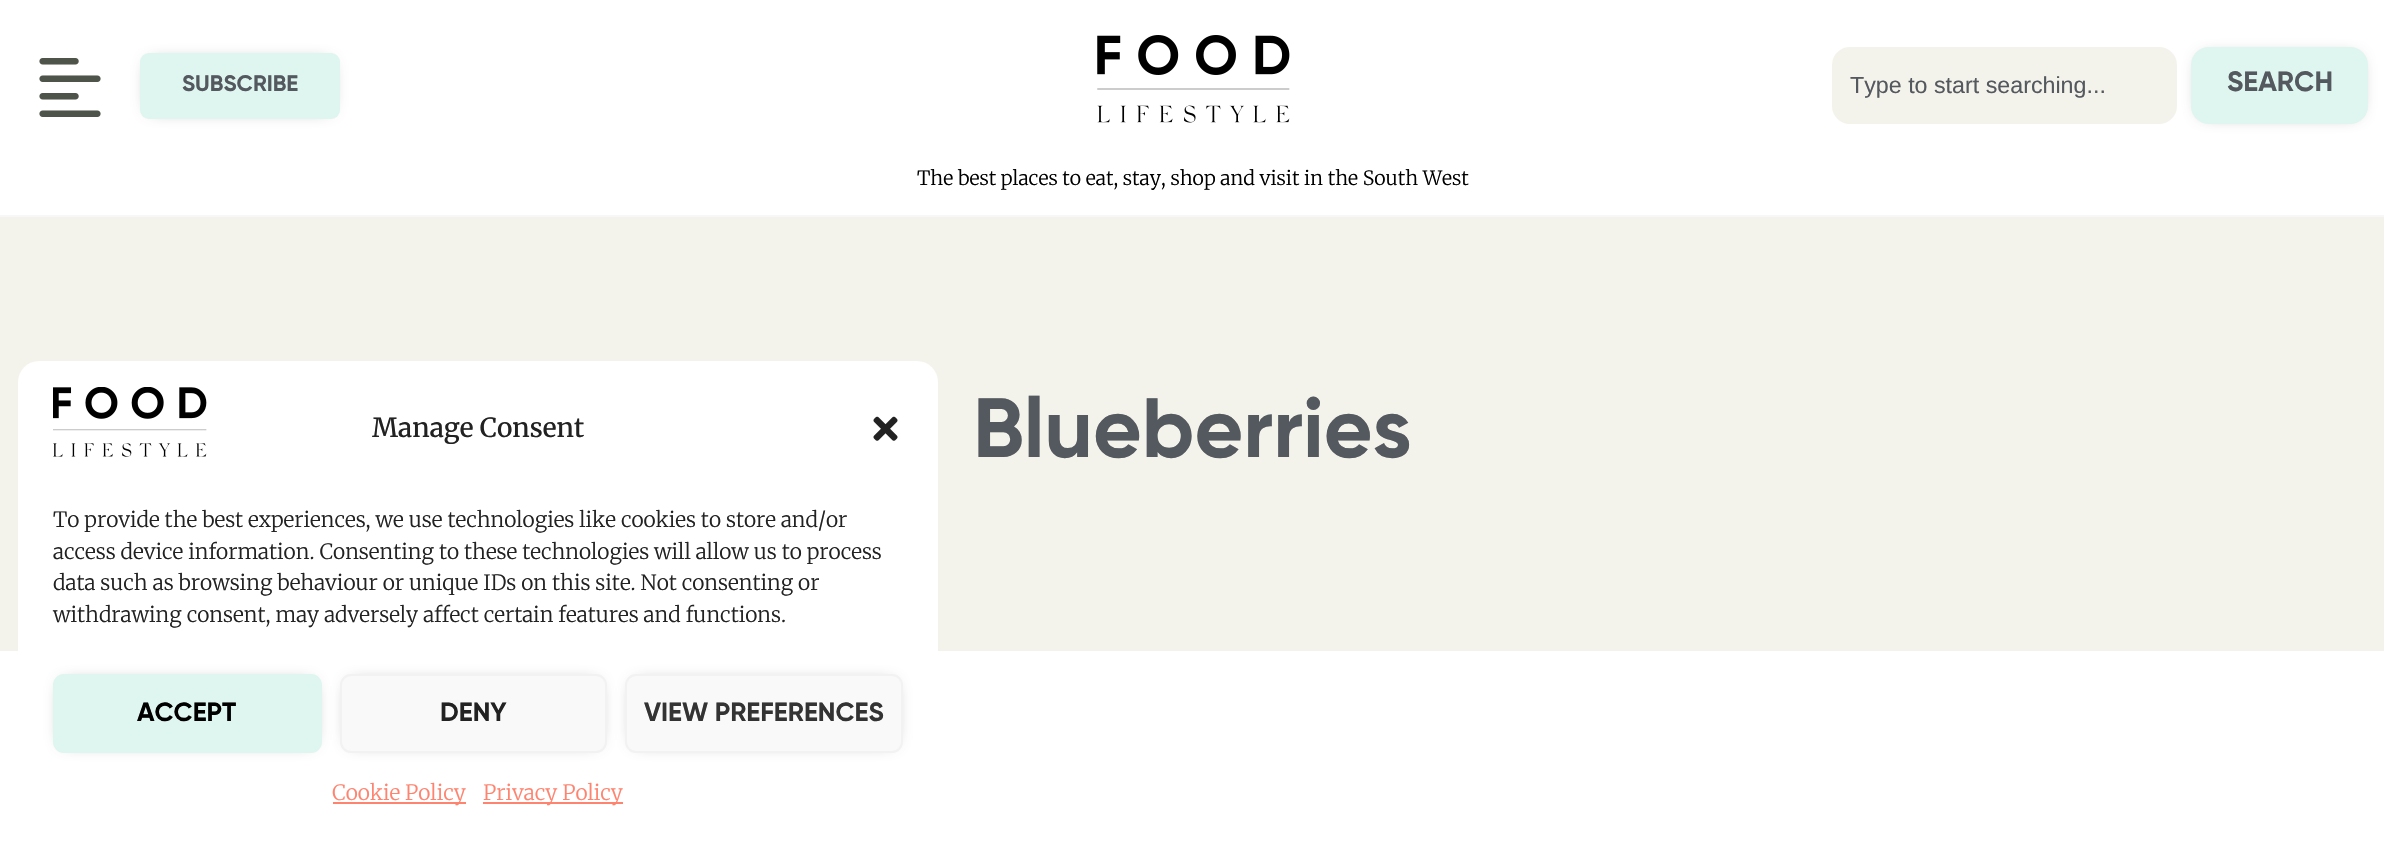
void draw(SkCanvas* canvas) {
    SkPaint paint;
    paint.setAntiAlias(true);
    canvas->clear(0xFFFFFFFF);
    paint.setColor(0xFFF7F7F7);
    canvas->drawRect(SkRect::MakeXYWH(0, 215, 2384, 2), paint);
    canvas->drawImageRect(SkImages::DeferredFromEncodedData(SkData::MakeFromFileName("img1.png")), SkRect::MakeXYWH(39, 58, 62, 59), SkSamplingOptions());
    paint.setColor(0xA1000000);
    paint.setMaskFilter(SkMaskFilter::MakeBlur(kNormal_SkBlurStyle, 9));
    canvas->drawRect(SkRect::MakeXYWH(152, 65, 175, 42), paint);
    paint.setMaskFilter(nullptr);
    paint.setColor(0xFFDFF5EF);
    canvas->drawRoundRect(SkRect::MakeXYWH(140, 53, 200, 66), 9, 9, paint);
    SkFont font1(fontMgr->matchFamilyStyle("Gilroy", SkFontStyle::Normal()), 22.5f);
    font1.setSubpixel(true);
    paint.setColor(0xFF54595F);
    canvas->drawString("SUBSCRIBE", 182, 91, font1, paint);
    canvas->drawImageRect(SkImages::DeferredFromEncodedData(SkData::MakeFromFileName("img2.png")), SkRect::MakeXYWH(1097, 35, 193, 88), SkSamplingOptions());
    paint.setColor(0xA1000000);
    paint.setMaskFilter(SkMaskFilter::MakeBlur(kNormal_SkBlurStyle, 9));
    canvas->drawRoundRect(SkRect::MakeXYWH(2203, 60, 153, 52), 5, 5, paint);
    paint.setMaskFilter(nullptr);
    paint.setColor(0xFFF4F3EB);
    canvas->drawRoundRect(SkRect::MakeXYWH(1832, 47, 345, 77), 18, 18, paint);
    SkFont font2(fontMgr->matchFamilyStyle("Liberation Sans", SkFontStyle::Normal()), 23.25f);
    font2.setSubpixel(true);
    paint.setColor(0xFF54595F);
    canvas->drawString("Type to start searching...", 1850, 93, font2, paint);
    paint.setColor(0xFFDFF5EF);
    canvas->drawRoundRect(SkRect::MakeXYWH(2191, 47, 177, 77), 18, 18, paint);
    SkFont font3(fontMgr->matchFamilyStyle("Gilroy", SkFontStyle::Normal()), 28);
    font3.setSubpixel(true);
    paint.setColor(0xFF54595F);
    canvas->drawString("SEARCH", 2227, 91, font3, paint);
    SkFont font4(fontMgr->matchFamilyStyle("Merriweather", SkFontStyle(300, SkFontStyle::kNormal_Width, SkFontStyle::kUpright_Slant)), 19.6f);
    font4.setSubpixel(true);
    paint.setColor(0xFF000000);
    canvas->drawString("The best places to eat, stay, shop and visit in the South West", 917, 185, font4, paint);
    paint.setColor(0xFFF4F3EB);
    canvas->drawRect(SkRect::MakeXYWH(0, 217, 2384, 434), paint);
    paint.setColor(0xFFFFFFFF);
    canvas->drawRoundRect(SkRect::MakeXYWH(18, 361, 920, 481), 21, 21, paint);
    canvas->drawImageRect(SkImages::DeferredFromEncodedData(SkData::MakeFromFileName("img3.png")), SkRect::MakeXYWH(53, 387, 154, 70), SkSamplingOptions());
    SkFont font5(fontMgr->matchFamilyStyle("Merriweather", SkFontStyle(500, SkFontStyle::kNormal_Width, SkFontStyle::kUpright_Slant)), 26.25f);
    font5.setSubpixel(true);
    paint.setColor(0xFF222222);
    canvas->drawString("Manage Consent", 372, 437, font5, paint);
    canvas->drawImageRect(SkImages::DeferredFromEncodedData(SkData::MakeFromFileName("img4.png")), SkRect::MakeXYWH(873, 416, 25, 25), SkSamplingOptions());
    SkFont font6(fontMgr->matchFamilyStyle("Merriweather", SkFontStyle(300, SkFontStyle::kNormal_Width, SkFontStyle::kUpright_Slant)), 21);
    font6.setSubpixel(true);
    canvas->drawString("To provide the best experiences, we use technologies like cookies to store and/or", 53, 527, font6, paint);
    canvas->drawString("access device information. Consenting to these technologies will allow us to process", 53, 559, font6, paint);
    canvas->drawString("data such as browsing behaviour or unique IDs on this site. Not consenting or", 53, 590, font6, paint);
    canvas->drawString("withdrawing consent, may adversely affect certain features and functions.", 53, 622, font6, paint);
    paint.setColor(0xA1000000);
    paint.setMaskFilter(SkMaskFilter::MakeBlur(kNormal_SkBlurStyle, 9));
    canvas->drawRect(SkRect::MakeXYWH(65, 686, 245, 54), paint);
    paint.setMaskFilter(nullptr);
    paint.setColor(0xFFDFF5EF);
    canvas->drawRoundRect(SkRect::MakeXYWH(54, 675, 267, 77), 10, 10, paint);
    paint.setStyle(SkPaint::kStroke_Style);
    paint.setStrokeWidth(2);
    canvas->drawRoundRect(SkRect::MakeXYWH(54, 675, 267, 77), 10, 10, paint);
    SkFont font7(fontMgr->matchFamilyStyle("Gilroy", SkFontStyle::Normal()), 26.25f);
    font7.setSubpixel(true);
    paint.setStyle(SkPaint::kFill_Style);
    paint.setColor(0xFF000000);
    canvas->drawString("ACCEPT", 137, 721, font7, paint);
    paint.setColor(0xA1000000);
    paint.setMaskFilter(SkMaskFilter::MakeBlur(kNormal_SkBlurStyle, 9));
    canvas->drawRect(SkRect::MakeXYWH(352, 686, 243, 54), paint);
    paint.setMaskFilter(nullptr);
    paint.setColor(0xFFF9F9F9);
    canvas->drawRoundRect(SkRect::MakeXYWH(341, 675, 265, 77), 10, 10, paint);
    paint.setStyle(SkPaint::kStroke_Style);
    paint.setColor(0xFFF2F2F2);
    canvas->drawRoundRect(SkRect::MakeXYWH(341, 675, 265, 77), 10, 10, paint);
    paint.setStyle(SkPaint::kFill_Style);
    paint.setColor(0xFF222222);
    canvas->drawString("DENY", 440, 721, font7, paint);
    paint.setColor(0xA1000000);
    paint.setMaskFilter(SkMaskFilter::MakeBlur(kNormal_SkBlurStyle, 9));
    canvas->drawRect(SkRect::MakeXYWH(637, 686, 254, 54), paint);
    paint.setMaskFilter(nullptr);
    paint.setColor(0xFFF9F9F9);
    canvas->drawRoundRect(SkRect::MakeXYWH(626, 675, 276, 77), 10, 10, paint);
    paint.setStyle(SkPaint::kStroke_Style);
    paint.setColor(0xFFF2F2F2);
    canvas->drawRoundRect(SkRect::MakeXYWH(626, 675, 276, 77), 10, 10, paint);
    paint.setStyle(SkPaint::kFill_Style);
    paint.setColor(0xFF333333);
    canvas->drawString("VIEW PREFERENCES", 644, 721, font7, paint);
    paint.setColor(0xFFFF8470);
    canvas->drawRect(SkRect::MakeXYWH(333, 802, 133, 2), paint);
    canvas->drawString("Cookie Policy", 332, 800, font6, paint);
    canvas->drawRect(SkRect::MakeXYWH(483, 802, 140, 2), paint);
    canvas->drawString("Privacy Policy", 483, 800, font6, paint);
    SkFont font8(fontMgr->matchFamilyStyle("Gilroy", SkFontStyle::Normal()), 84);
    font8.setSubpixel(true);
    paint.setColor(0xFF54595F);
    canvas->drawString("Blueberries", 973, 457, font8, paint);
}
